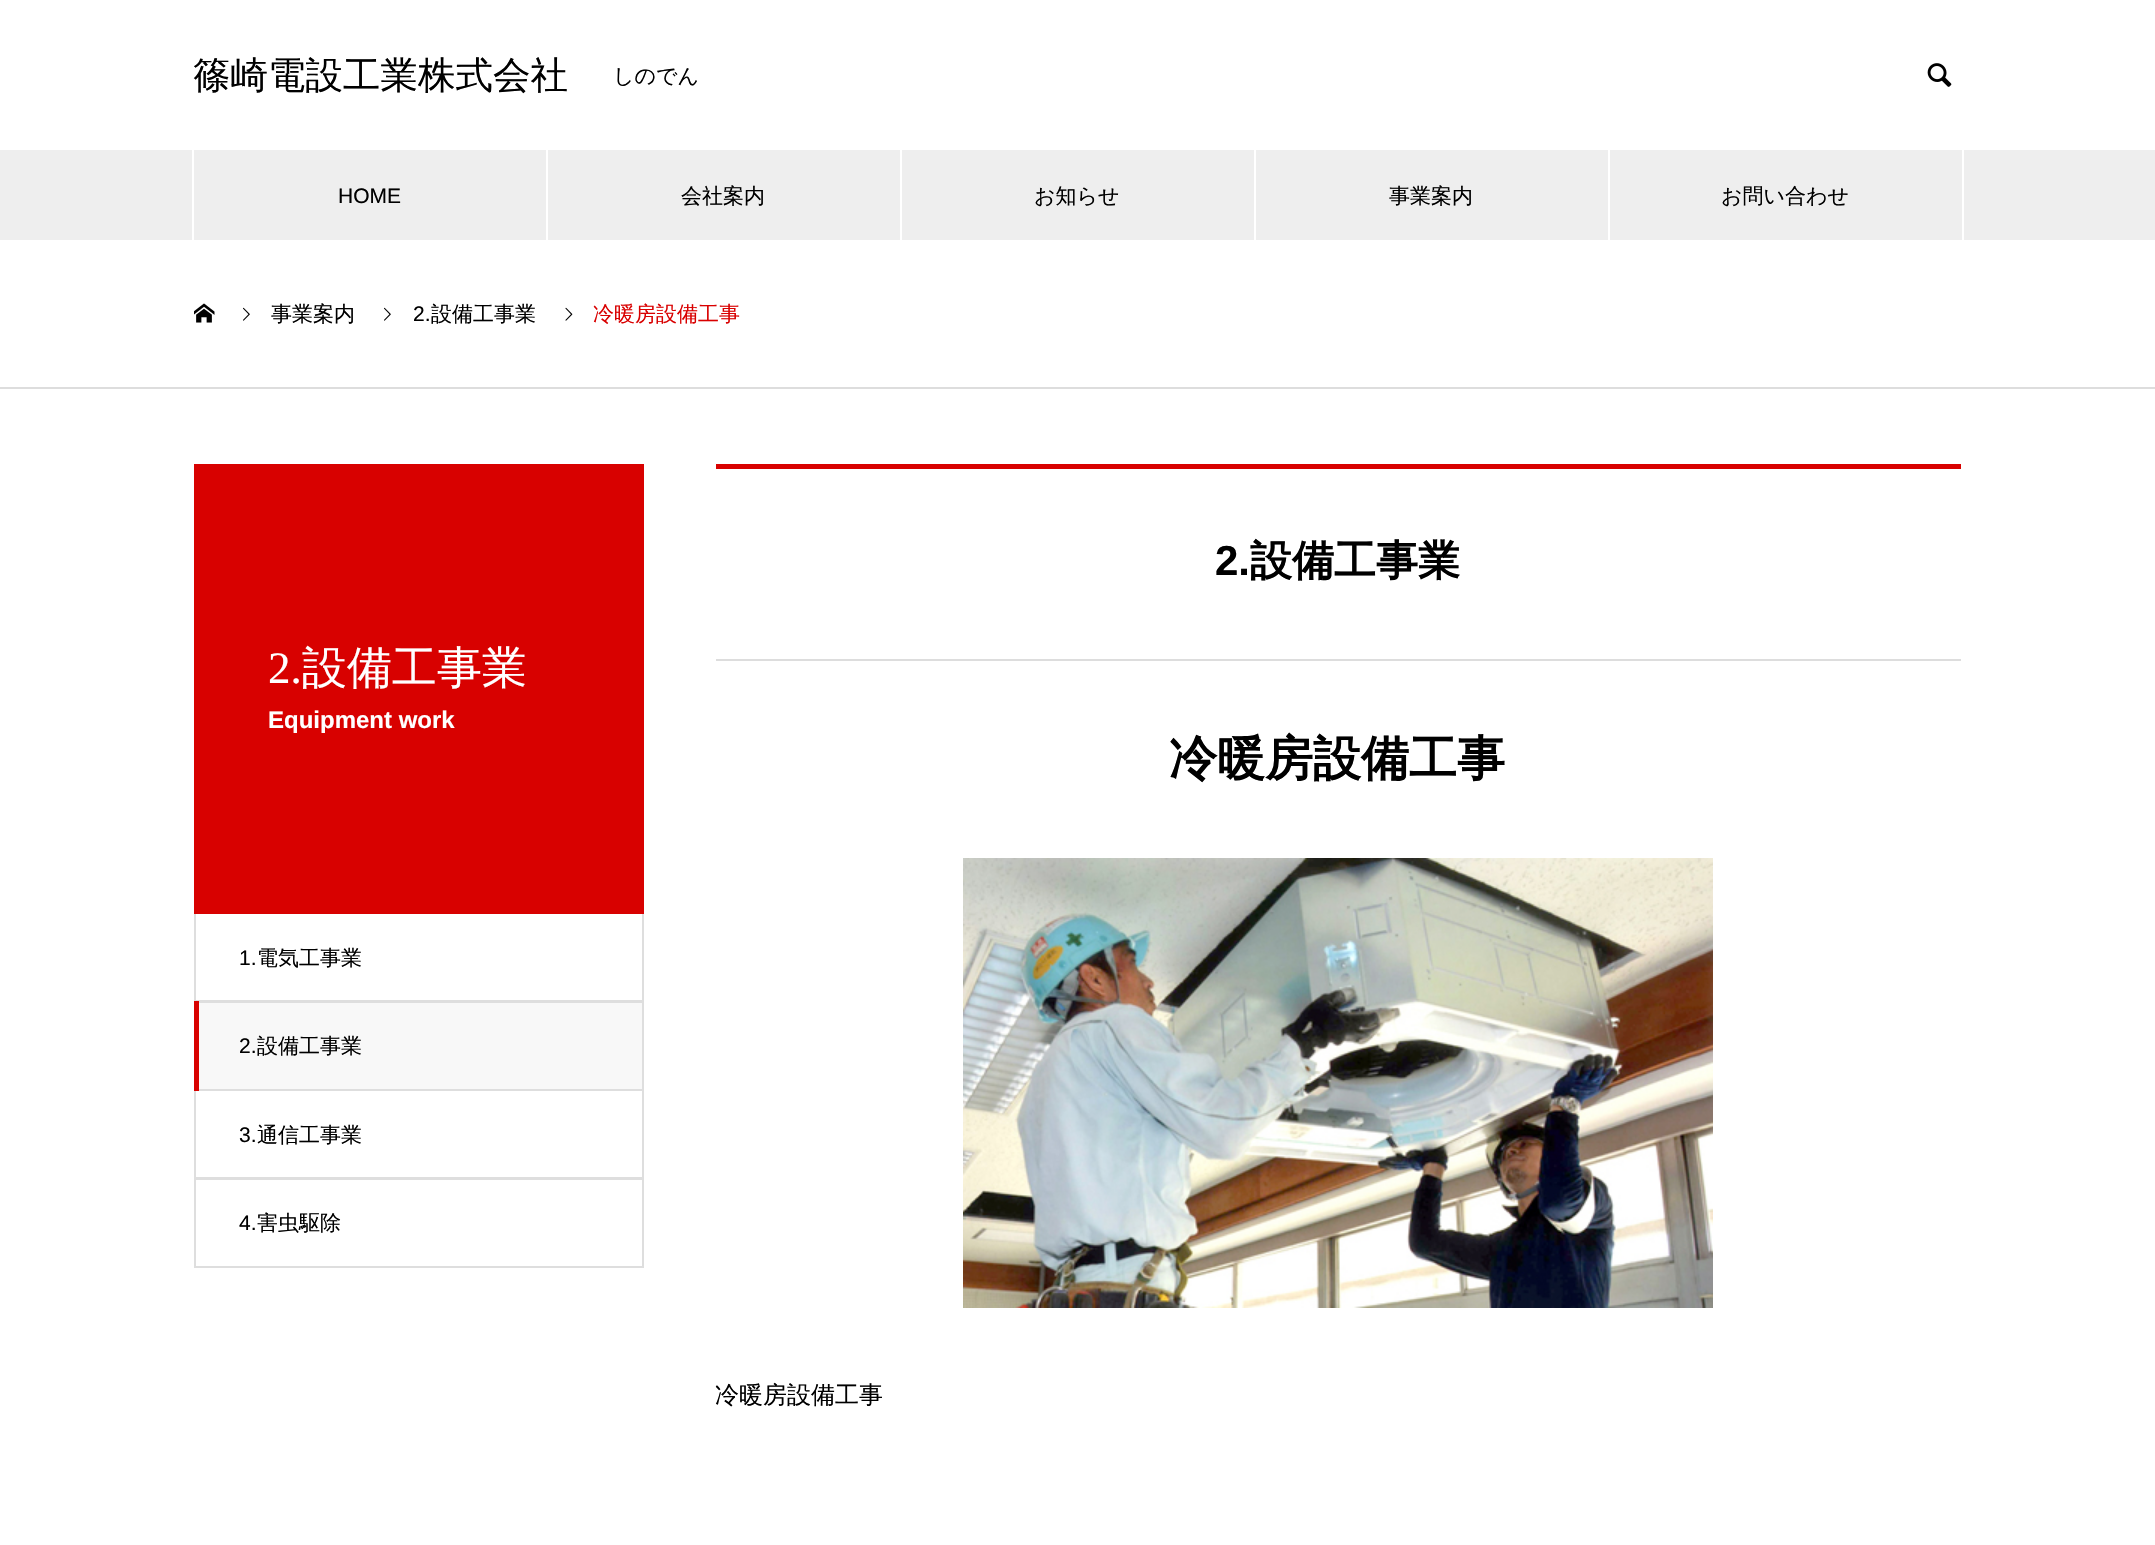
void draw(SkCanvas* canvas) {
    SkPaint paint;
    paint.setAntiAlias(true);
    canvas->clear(0xFFFFFFFF);
    SkFont font1(fontMgr->matchFamilyStyle("WenQuanYi Zen Hei", SkFontStyle(500, SkFontStyle::kNormal_Width, SkFontStyle::kUpright_Slant)), 37.5f);
    font1.setSubpixel(true);
    paint.setColor(0xFF000000);
    canvas->drawString("篠崎電設工業株式会社", 193, 88, font1, paint);
    SkFont font2(fontMgr->matchFamilyStyle("WenQuanYi Zen Hei", SkFontStyle(500, SkFontStyle::kNormal_Width, SkFontStyle::kUpright_Slant)), 21);
    font2.setSubpixel(true);
    canvas->drawString("しのでん", 613, 83, font2, paint);
    canvas->drawImageRect(SkImages::DeferredFromEncodedData(SkData::MakeFromFileName("img1.png")), SkRect::MakeXYWH(1927, 63, 25, 24), SkSamplingOptions());
    paint.setColor(0xFFEEEEEE);
    canvas->drawRect(SkRect::MakeXYWH(0, 150, 2155, 90), paint);
    paint.setColor(0xFFFFFFFF);
    canvas->drawRect(SkRect::MakeXYWH(546, 150, 2, 90), paint);
    canvas->drawRect(SkRect::MakeXYWH(192, 150, 2, 90), paint);
    SkFont font3(fontMgr->matchFamilyStyle("Liberation Sans", SkFontStyle::Normal()), 21);
    font3.setSubpixel(true);
    paint.setColor(0xFF000000);
    canvas->drawString("HOME", 338, 203, font3, paint);
    canvas->drawString("会社案内", 681, 203, font2, paint);
    paint.setColor(0xFFFFFFFF);
    canvas->drawRect(SkRect::MakeXYWH(1254, 150, 2, 90), paint);
    canvas->drawRect(SkRect::MakeXYWH(900, 150, 2, 90), paint);
    paint.setColor(0xFF000000);
    canvas->drawString("お知らせ", 1034, 203, font2, paint);
    canvas->drawString("事業案内", 1389, 203, font2, paint);
    paint.setColor(0xFFFFFFFF);
    canvas->drawRect(SkRect::MakeXYWH(1962, 150, 2, 90), paint);
    canvas->drawRect(SkRect::MakeXYWH(1608, 150, 2, 90), paint);
    paint.setColor(0xFF000000);
    canvas->drawString("お問い合わせ", 1721, 203, font2, paint);
    canvas->drawImageRect(SkImages::DeferredFromEncodedData(SkData::MakeFromFileName("img2.png")), SkRect::MakeXYWH(194, 303, 21, 20), SkSamplingOptions());
    canvas->drawImageRect(SkImages::DeferredFromEncodedData(SkData::MakeFromFileName("img3.png")), SkRect::MakeXYWH(243, 307, 7, 14), SkSamplingOptions());
    canvas->drawString("事業案内", 271, 321, font2, paint);
    canvas->drawImageRect(SkImages::DeferredFromEncodedData(SkData::MakeFromFileName("img3.png")), SkRect::MakeXYWH(384, 307, 7, 14), SkSamplingOptions());
    canvas->drawString("2.", 413, 321, font3, paint);
    canvas->drawString("設備工事業", 431, 321, font2, paint);
    canvas->drawImageRect(SkImages::DeferredFromEncodedData(SkData::MakeFromFileName("img4.png")), SkRect::MakeXYWH(565, 307, 8, 14), SkSamplingOptions());
    paint.setColor(0xFFD90000);
    canvas->drawString("冷暖房設備工事", 593, 321, font2, paint);
    paint.setColor(0xFFDDDDDD);
    canvas->drawRect(SkRect::MakeXYWH(0, 387, 2155, 2), paint);
    paint.setColor(0xFFD80100);
    canvas->drawRect(SkRect::MakeXYWH(194, 464, 450, 450), paint);
    SkFont font4(fontMgr->matchFamilyStyle("Liberation Serif", SkFontStyle::Normal()), 45);
    font4.setSubpixel(true);
    paint.setColor(0xFFFFFFFF);
    canvas->drawString("2.", 268, 683, font4, paint);
    SkFont font5(fontMgr->matchFamilyStyle("WenQuanYi Zen Hei", SkFontStyle(500, SkFontStyle::kNormal_Width, SkFontStyle::kUpright_Slant)), 45);
    font5.setSubpixel(true);
    canvas->drawString("設備工事業", 302, 683, font5, paint);
    SkFont font6(fontMgr->matchFamilyStyle("Liberation Sans", SkFontStyle::Bold()), 24);
    font6.setSubpixel(true);
    canvas->drawString("Equipment work", 268, 728, font6, paint);
    canvas->save();
    canvas->clipRect(SkRect::MakeXYWH(194, 914, 450, 354));
    paint.setStyle(SkPaint::kStroke_Style);
    paint.setStrokeWidth(2);
    paint.setColor(0xFFDEDEDE);
    canvas->drawRect(SkRect::MakeXYWH(195, 913, 448, 88), paint);
    canvas->restore();
    paint.setStyle(SkPaint::kFill_Style);
    paint.setColor(0xFF000000);
    canvas->drawString("1.", 239, 965, font3, paint);
    canvas->drawString("電気工事業", 257, 965, font2, paint);
    paint.setColor(0xFFF8F8F8);
    canvas->drawRect(SkRect::MakeXYWH(199, 1003, 443, 86), paint);
    paint.setStyle(SkPaint::kStroke_Style);
    paint.setColor(0xFFDEDEDE);
    canvas->drawRect(SkRect::MakeXYWH(195, 1002, 448, 88), paint);
    canvas->drawRect(SkRect::MakeXYWH(195, 1090, 448, 88), paint);
    paint.setStyle(SkPaint::kFill_Style);
    paint.setColor(0xFFD80100);
    canvas->drawRect(SkRect::MakeXYWH(194, 1001, 5, 90), paint);
    paint.setColor(0xFF000000);
    canvas->drawString("2.", 239, 1053, font3, paint);
    canvas->drawString("設備工事業", 257, 1053, font2, paint);
    canvas->drawString("3.", 239, 1142, font3, paint);
    canvas->drawString("通信工事業", 257, 1142, font2, paint);
    paint.setStyle(SkPaint::kStroke_Style);
    paint.setColor(0xFFDEDEDE);
    canvas->drawRect(SkRect::MakeXYWH(195, 1179, 448, 88), paint);
    paint.setStyle(SkPaint::kFill_Style);
    paint.setColor(0xFF000000);
    canvas->drawString("4.", 239, 1230, font3, paint);
    canvas->drawString("害虫駆除", 257, 1230, font2, paint);
    paint.setColor(0xFFD80100);
    canvas->drawRect(SkRect::MakeXYWH(716, 464, 1245, 5), paint);
    SkFont font7(fontMgr->matchFamilyStyle("Liberation Sans", SkFontStyle::Bold()), 42);
    font7.setSubpixel(true);
    paint.setColor(0xFF000000);
    canvas->drawString("2.", 1215, 575, font7, paint);
    SkFont font8(fontMgr->matchFamilyStyle("WenQuanYi Zen Hei", SkFontStyle::Bold()), 42);
    font8.setSubpixel(true);
    canvas->drawString("設備工事業", 1250, 575, font8, paint);
    paint.setColor(0xFFDDDDDD);
    canvas->drawRect(SkRect::MakeXYWH(716, 659, 1245, 2), paint);
    SkFont font9(fontMgr->matchFamilyStyle("WenQuanYi Zen Hei", SkFontStyle::Bold()), 48);
    font9.setSubpixel(true);
    paint.setColor(0xFF000000);
    canvas->drawString("冷暖房設備工事", 1169, 775, font9, paint);
    canvas->drawImageRect(SkImages::DeferredFromEncodedData(SkData::MakeFromFileName("img5.png")), SkRect::MakeXYWH(963, 858, 750, 450), SkSamplingOptions());
    SkFont font10(fontMgr->matchFamilyStyle("WenQuanYi Zen Hei", SkFontStyle(500, SkFontStyle::kNormal_Width, SkFontStyle::kUpright_Slant)), 24);
    font10.setSubpixel(true);
    canvas->drawString("冷暖房設備工事", 715, 1403, font10, paint);
}
